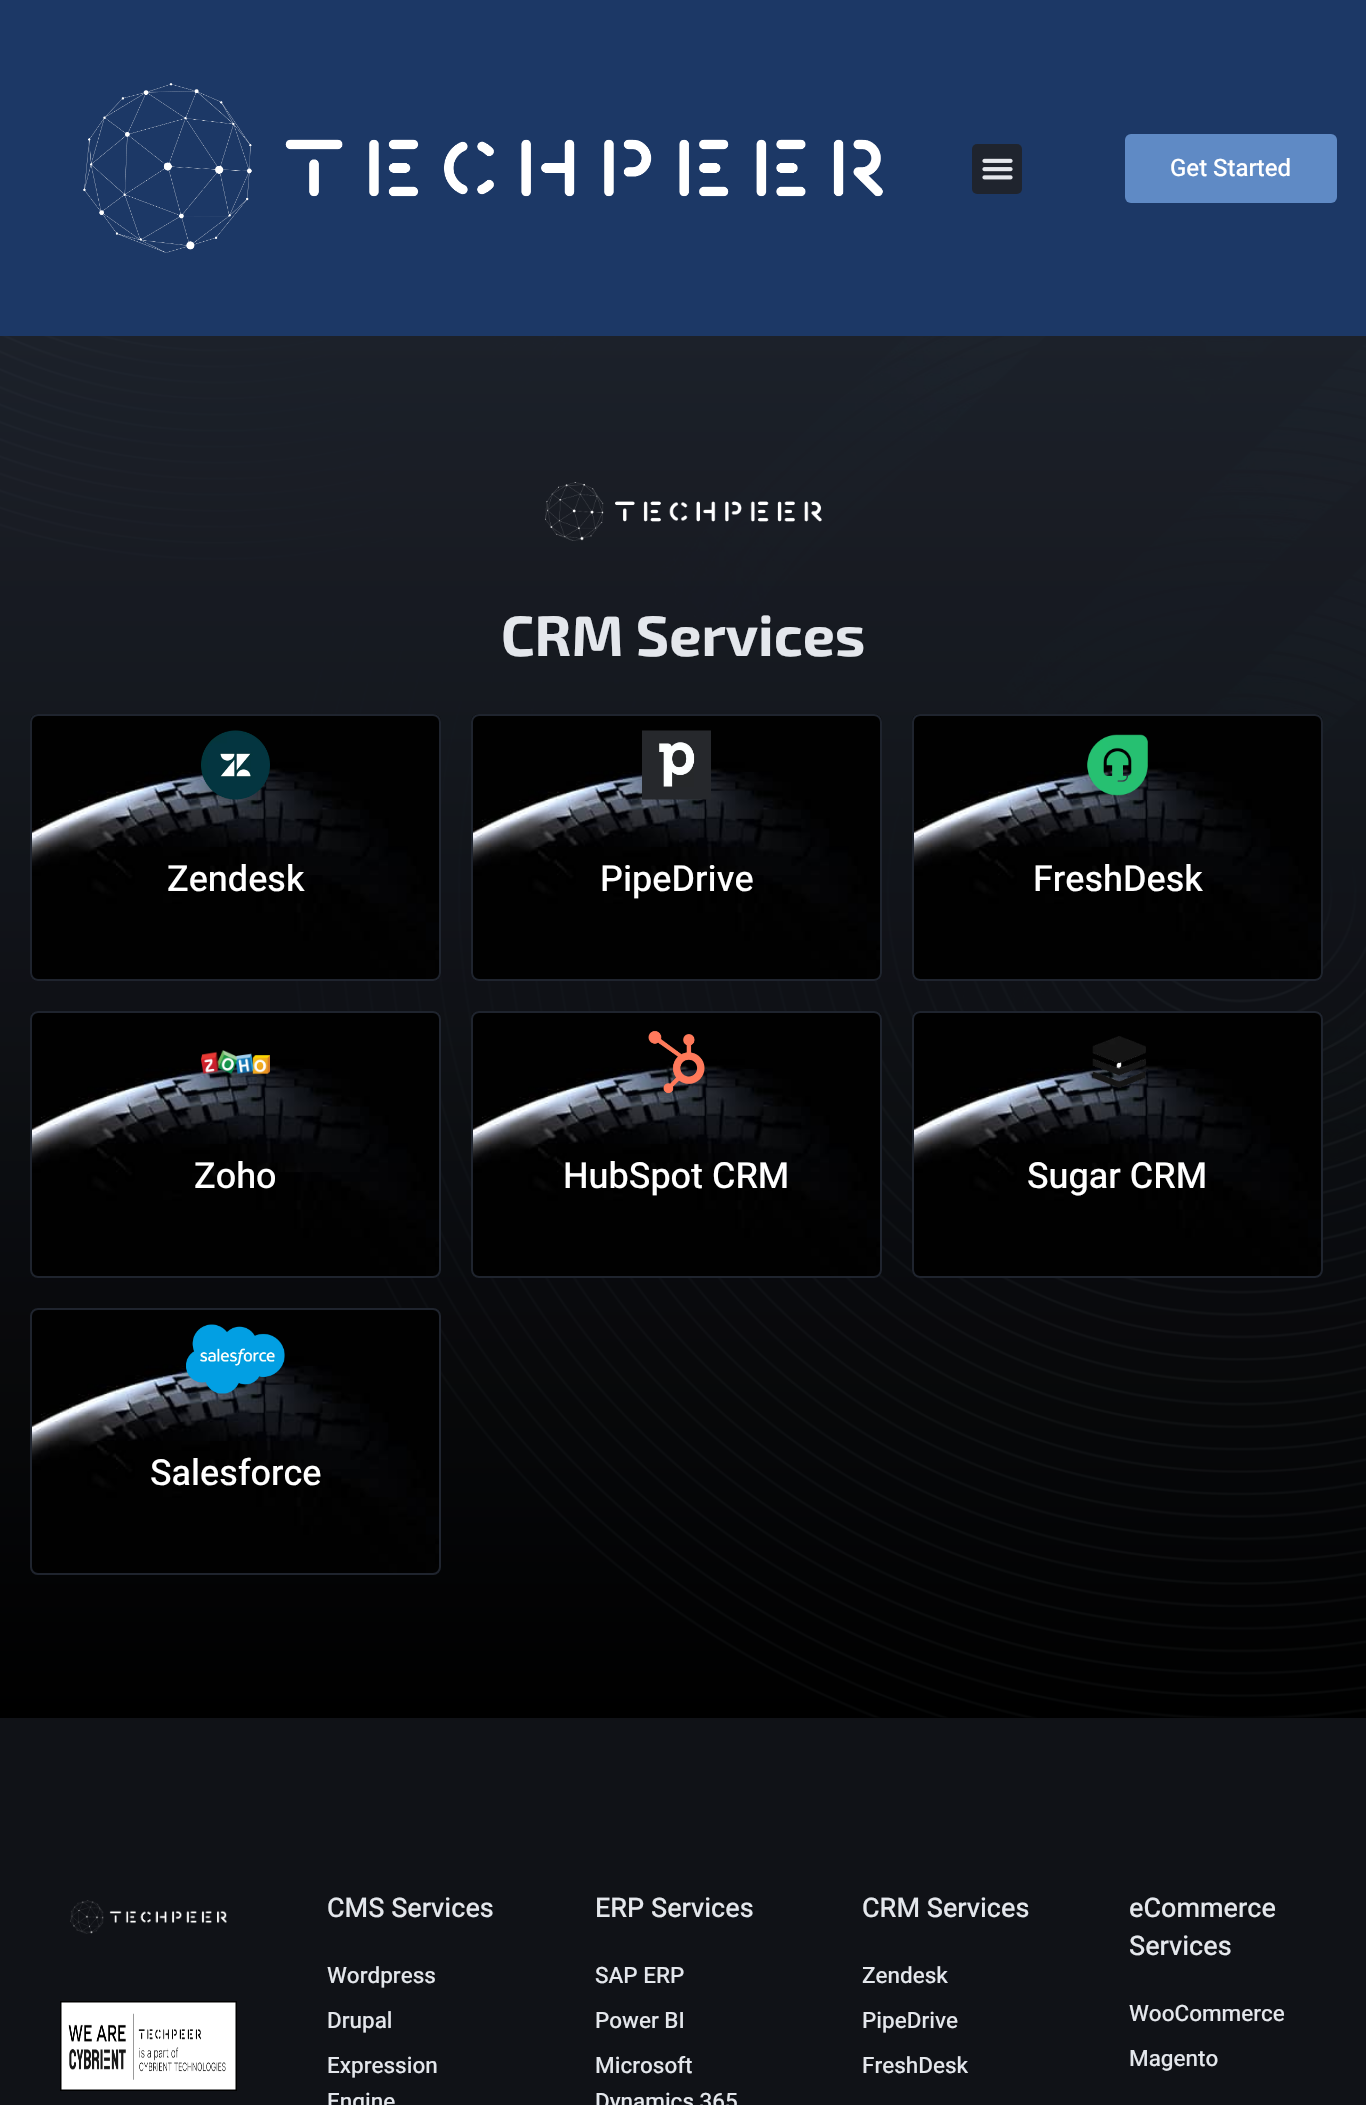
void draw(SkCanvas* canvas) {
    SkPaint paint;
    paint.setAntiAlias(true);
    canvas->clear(0xFF1C3866);
    canvas->drawImageRect(SkImages::DeferredFromEncodedData(SkData::MakeFromFileName("img1.png")), SkRect::MakeXYWH(83, 83, 800, 170), SkSamplingOptions());
    paint.setColor(0xFF1F242E);
    canvas->drawRoundRect(SkRect::MakeXYWH(972, 144, 50, 50), 5, 5, paint);
    canvas->drawImageRect(SkImages::DeferredFromEncodedData(SkData::MakeFromFileName("img2.png")), SkRect::MakeXYWH(982, 158, 31, 22), SkSamplingOptions());
    paint.setColor(0xFF5F8AC5);
    canvas->drawRoundRect(SkRect::MakeXYWH(1125, 134, 212, 69), 6, 6, paint);
    SkFont font1(fontMgr->matchFamilyStyle("Heebo", SkFontStyle(500, SkFontStyle::kNormal_Width, SkFontStyle::kUpright_Slant)), 24);
    font1.setSubpixel(true);
    paint.setColor(0xFFFFFFFF);
    canvas->drawString("Get Started", 1170, 176, font1, paint);
    {
        const SkColor colors[] = {0xFF1F242E, 0xFF000000};
        const float stops[] = {0, 1};
        const SkPoint ends[] = {{683, 336}, {683, 1718}};
        paint.setShader(SkGradientShader::MakeLinear(ends, colors, stops, 2, SkTileMode::kClamp));
        paint.setAlpha(255);
    }
    canvas->drawRect(SkRect::MakeXYWH(0, 336, 1366, 1382), paint);
    canvas->drawImageRect(SkImages::DeferredFromEncodedData(SkData::MakeFromFileName("img3.png")), SkRect::MakeXYWH(0, 336, 1366, 1382), SkSamplingOptions());
    canvas->drawImageRect(SkImages::DeferredFromEncodedData(SkData::MakeFromFileName("img4.png")), SkRect::MakeXYWH(545, 482, 277, 59), SkSamplingOptions());
    SkFont font2(fontMgr->matchFamilyStyle("Exo 2", SkFontStyle::Bold()), 57);
    font2.setSubpixel(true);
    paint.setShader(nullptr);
    paint.setColor(0xFFE4E7EC);
    canvas->drawString("CRM Services", 501, 656, font2, paint);
    canvas->drawImageRect(SkImages::DeferredFromEncodedData(SkData::MakeFromFileName("img5.png")), SkRect::MakeXYWH(30, 714, 411, 267), SkSamplingOptions());
    paint.setStyle(SkPaint::kStroke_Style);
    paint.setStrokeWidth(2);
    paint.setColor(0xFF1F242E);
    canvas->drawRoundRect(SkRect::MakeXYWH(31, 715, 409, 265), 7, 7, paint);
    canvas->drawImageRect(SkImages::DeferredFromEncodedData(SkData::MakeFromFileName("img6.png")), SkRect::MakeXYWH(201, 730, 69, 70), SkSamplingOptions());
    SkFont font3(fontMgr->matchFamilyStyle("Heebo", SkFontStyle(500, SkFontStyle::kNormal_Width, SkFontStyle::kUpright_Slant)), 36);
    font3.setSubpixel(true);
    paint.setStyle(SkPaint::kFill_Style);
    paint.setColor(0xFFFFFFFF);
    canvas->drawString("Zendesk", 167, 891, font3, paint);
    canvas->drawImageRect(SkImages::DeferredFromEncodedData(SkData::MakeFromFileName("img7.png")), SkRect::MakeXYWH(471, 714, 411, 267), SkSamplingOptions());
    paint.setStyle(SkPaint::kStroke_Style);
    paint.setColor(0xFF1F242E);
    canvas->drawRoundRect(SkRect::MakeXYWH(472, 715, 409, 265), 7, 7, paint);
    canvas->drawImageRect(SkImages::DeferredFromEncodedData(SkData::MakeFromFileName("img8.png")), SkRect::MakeXYWH(642, 730, 69, 70), SkSamplingOptions());
    paint.setStyle(SkPaint::kFill_Style);
    paint.setColor(0xFFFFFFFF);
    canvas->drawString("PipeDrive", 600, 891, font3, paint);
    canvas->drawImageRect(SkImages::DeferredFromEncodedData(SkData::MakeFromFileName("img9.png")), SkRect::MakeXYWH(912, 714, 411, 267), SkSamplingOptions());
    paint.setStyle(SkPaint::kStroke_Style);
    paint.setColor(0xFF1F242E);
    canvas->drawRoundRect(SkRect::MakeXYWH(913, 715, 409, 265), 7, 7, paint);
    canvas->drawImageRect(SkImages::DeferredFromEncodedData(SkData::MakeFromFileName("img10.png")), SkRect::MakeXYWH(1087, 734, 61, 62), SkSamplingOptions());
    paint.setStyle(SkPaint::kFill_Style);
    paint.setColor(0xFFFFFFFF);
    canvas->drawString("FreshDesk", 1033, 891, font3, paint);
    canvas->drawImageRect(SkImages::DeferredFromEncodedData(SkData::MakeFromFileName("img11.png")), SkRect::MakeXYWH(30, 1011, 411, 267), SkSamplingOptions());
    paint.setStyle(SkPaint::kStroke_Style);
    paint.setColor(0xFF1F242E);
    canvas->drawRoundRect(SkRect::MakeXYWH(31, 1012, 409, 265), 7, 7, paint);
    canvas->drawImageRect(SkImages::DeferredFromEncodedData(SkData::MakeFromFileName("img12.png")), SkRect::MakeXYWH(201, 1050, 69, 25), SkSamplingOptions());
    paint.setStyle(SkPaint::kFill_Style);
    paint.setColor(0xFFFFFFFF);
    canvas->drawString("Zoho", 194, 1188, font3, paint);
    canvas->drawImageRect(SkImages::DeferredFromEncodedData(SkData::MakeFromFileName("img13.png")), SkRect::MakeXYWH(471, 1011, 411, 267), SkSamplingOptions());
    paint.setStyle(SkPaint::kStroke_Style);
    paint.setColor(0xFF1F242E);
    canvas->drawRoundRect(SkRect::MakeXYWH(472, 1012, 409, 265), 7, 7, paint);
    canvas->drawImageRect(SkImages::DeferredFromEncodedData(SkData::MakeFromFileName("img14.png")), SkRect::MakeXYWH(648, 1030, 57, 64), SkSamplingOptions());
    paint.setStyle(SkPaint::kFill_Style);
    paint.setColor(0xFFFFFFFF);
    canvas->drawString("HubSpot CRM", 563, 1188, font3, paint);
    canvas->drawImageRect(SkImages::DeferredFromEncodedData(SkData::MakeFromFileName("img15.png")), SkRect::MakeXYWH(912, 1011, 411, 267), SkSamplingOptions());
    paint.setStyle(SkPaint::kStroke_Style);
    paint.setColor(0xFF1F242E);
    canvas->drawRoundRect(SkRect::MakeXYWH(913, 1012, 409, 265), 7, 7, paint);
    canvas->drawImageRect(SkImages::DeferredFromEncodedData(SkData::MakeFromFileName("img16.png")), SkRect::MakeXYWH(1092, 1036, 54, 52), SkSamplingOptions());
    paint.setStyle(SkPaint::kFill_Style);
    paint.setColor(0xFFFFFFFF);
    canvas->drawString("Sugar CRM", 1027, 1188, font3, paint);
    canvas->drawImageRect(SkImages::DeferredFromEncodedData(SkData::MakeFromFileName("img17.png")), SkRect::MakeXYWH(30, 1308, 411, 266), SkSamplingOptions());
    paint.setStyle(SkPaint::kStroke_Style);
    paint.setColor(0xFF1F242E);
    canvas->drawRoundRect(SkRect::MakeXYWH(31, 1309, 409, 265), 7, 7, paint);
    canvas->drawImageRect(SkImages::DeferredFromEncodedData(SkData::MakeFromFileName("img18.png")), SkRect::MakeXYWH(186, 1324, 99, 70), SkSamplingOptions());
    paint.setStyle(SkPaint::kFill_Style);
    paint.setColor(0xFFFFFFFF);
    canvas->drawString("Salesforce", 150, 1485, font3, paint);
    paint.setColor(0xFF101217);
    canvas->drawRect(SkRect::MakeXYWH(0, 1718, 1366, 387), paint);
    canvas->drawImageRect(SkImages::DeferredFromEncodedData(SkData::MakeFromFileName("img19.png")), SkRect::MakeXYWH(70, 1900, 157, 34), SkSamplingOptions());
    paint.setStyle(SkPaint::kStroke_Style);
    paint.setColor(0xFF000000);
    canvas->drawRect(SkRect::MakeXYWH(61, 2002, 175, 88), paint);
    canvas->drawImageRect(SkImages::DeferredFromEncodedData(SkData::MakeFromFileName("img20.png")), SkRect::MakeXYWH(61, 2002, 175, 88), SkSamplingOptions());
    SkFont font4(fontMgr->matchFamilyStyle("Heebo", SkFontStyle(500, SkFontStyle::kNormal_Width, SkFontStyle::kUpright_Slant)), 27);
    font4.setSubpixel(true);
    paint.setStyle(SkPaint::kFill_Style);
    paint.setColor(0xFFE4E7EC);
    canvas->drawString("CMS Services", 327, 1917, font4, paint);
    SkFont font5(fontMgr->matchFamilyStyle("Heebo", SkFontStyle(500, SkFontStyle::kNormal_Width, SkFontStyle::kUpright_Slant)), 22.5f);
    font5.setSubpixel(true);
    canvas->drawString("Wordpress", 327, 1983, font5, paint);
    canvas->drawString("Drupal", 327, 2028, font5, paint);
    canvas->drawString("Expression", 327, 2073, font5, paint);
    canvas->drawString("Engine", 327, 2109, font5, paint);
    canvas->drawString("ERP Services", 595, 1917, font4, paint);
    canvas->drawString("SAP ERP", 595, 1983, font5, paint);
    canvas->drawString("Power BI", 595, 2028, font5, paint);
    canvas->drawString("Microsoft", 595, 2073, font5, paint);
    canvas->drawString("Dynamics 365", 595, 2109, font5, paint);
    canvas->drawString("CRM Services", 862, 1917, font4, paint);
    canvas->drawString("Zendesk", 862, 1983, font5, paint);
    canvas->drawString("PipeDrive", 862, 2028, font5, paint);
    canvas->drawString("FreshDesk", 862, 2073, font5, paint);
    canvas->drawString("eCommerce", 1129, 1917, font4, paint);
    canvas->drawString("Services", 1129, 1955, font4, paint);
    canvas->drawString("WooCommerce", 1129, 2021, font5, paint);
    canvas->drawString("Magento", 1129, 2066, font5, paint);
}
